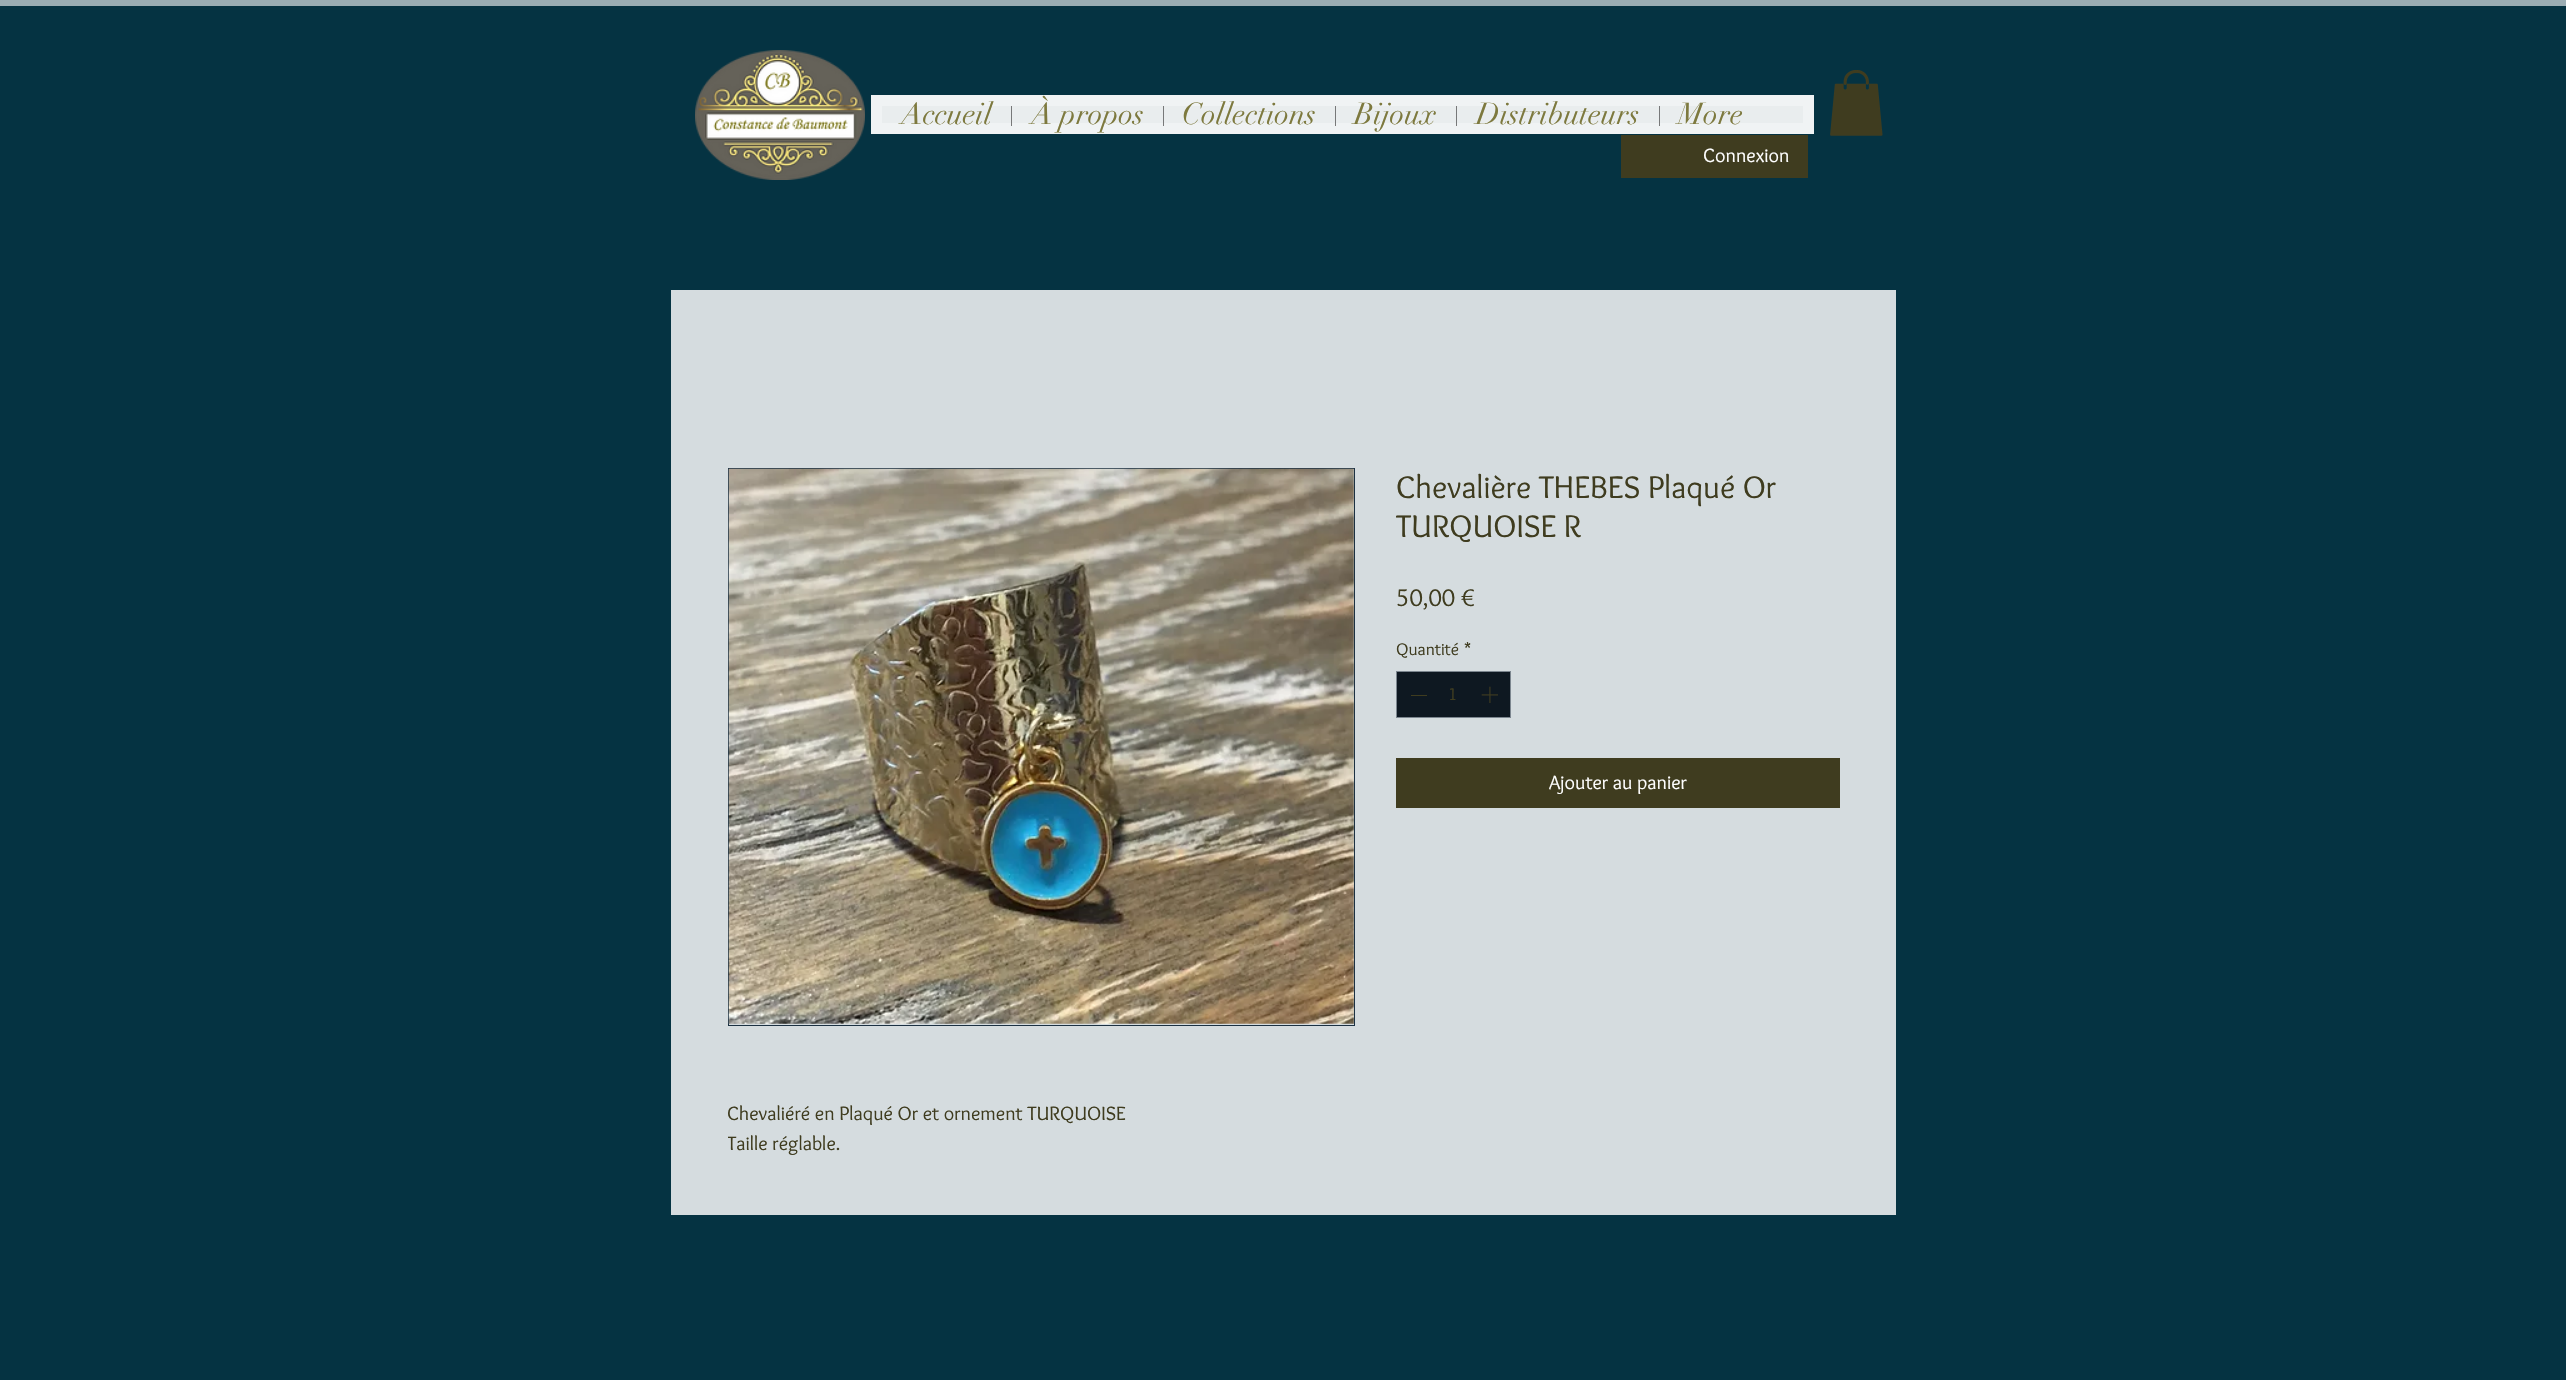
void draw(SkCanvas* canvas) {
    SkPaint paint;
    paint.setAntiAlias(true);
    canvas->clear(0xFF053342);
    paint.setColor(0xFF9BADB3);
    canvas->drawRect(SkRect::MakeXYWH(0, 0, 2566, 6), paint);
    canvas->drawImageRect(SkImages::DeferredFromEncodedData(SkData::MakeFromFileName("img1.png")), SkRect::MakeXYWH(695, 50, 170, 130), SkSamplingOptions());
    paint.setColor(0xFFE9EDEE);
    canvas->drawRect(SkRect::MakeXYWH(876.5f, 100.5f, 932, 28), paint);
    paint.setStyle(SkPaint::kStroke_Style);
    paint.setStrokeWidth(11);
    paint.setColor(0xFFF0F3F4);
    canvas->drawRect(SkRect::MakeXYWH(876.5f, 100.5f, 932, 28), paint);
    SkFont font1(fontMgr->matchFamilyStyle("didot", SkFontStyle::Normal()), 30);
    font1.setSubpixel(true);
    paint.setStyle(SkPaint::kFill_Style);
    paint.setColor(0xFF7D793E);
    canvas->drawString("Accueil", 901, 124, font1, paint);
    paint.setColor(0xAD414141);
    canvas->drawRect(SkRect::MakeXYWH(1011, 106, 1, 20), paint);
    paint.setColor(0xFF7D793E);
    canvas->drawString("À propos", 1031, 124, font1, paint);
    paint.setColor(0xAD414141);
    canvas->drawRect(SkRect::MakeXYWH(1163, 106, 1, 20), paint);
    paint.setColor(0xFF7D793E);
    canvas->drawString("Collections", 1182, 124, font1, paint);
    paint.setColor(0xAD414141);
    canvas->drawRect(SkRect::MakeXYWH(1335, 106, 1, 20), paint);
    paint.setColor(0xFF7D793E);
    canvas->drawString("Bijoux", 1354, 124, font1, paint);
    paint.setColor(0xAD414141);
    canvas->drawRect(SkRect::MakeXYWH(1456, 106, 1, 20), paint);
    paint.setColor(0xFF7D793E);
    canvas->drawString("Distributeurs", 1476, 124, font1, paint);
    paint.setColor(0xAD414141);
    canvas->drawRect(SkRect::MakeXYWH(1659, 106, 1, 20), paint);
    paint.setColor(0xFF7D793E);
    canvas->drawString("More", 1678, 124, font1, paint);
    canvas->drawImageRect(SkImages::DeferredFromEncodedData(SkData::MakeFromFileName("img2.png")), SkRect::MakeXYWH(1830, 70, 53, 66), SkSamplingOptions());
    paint.setColor(0xFF3F3C1F);
    canvas->drawRect(SkRect::MakeXYWH(1621, 135, 187, 43), paint);
    SkFont font2(fontMgr->matchFamilyStyle("Overlock", SkFontStyle::Normal()), 20);
    font2.setSubpixel(true);
    paint.setColor(0xFFFFFFFF);
    canvas->drawString("Connexion", 1703, 162, font2, paint);
    paint.setColor(0xFFD5DCDF);
    canvas->drawRect(SkRect::MakeXYWH(671, 290, 1225, 925), paint);
    SkFont font3(fontMgr->matchFamilyStyle("Overlock", SkFontStyle::Normal()), 32.5f);
    font3.setSubpixel(true);
    paint.setColor(0xFF3F3C1F);
    canvas->drawString("Chevalière THEBES Plaqué Or", 1396, 498, font3, paint);
    canvas->drawString("TURQUOISE R", 1396, 537, font3, paint);
    SkFont font4(fontMgr->matchFamilyStyle("Overlock", SkFontStyle::Normal()), 25);
    font4.setSubpixel(true);
    canvas->drawString("50,00 €", 1396, 606, font4, paint);
    SkFont font5(fontMgr->matchFamilyStyle("Overlock", SkFontStyle::Normal()), 17.5f);
    font5.setSubpixel(true);
    canvas->drawString("Quantité", 1396, 655, font5, paint);
    canvas->drawString("*", 1464, 655, font5, paint);
    paint.setColor(0xFF0E1821);
    canvas->drawRect(SkRect::MakeXYWH(1396.5f, 671.5f, 114, 46), paint);
    paint.setStyle(SkPaint::kStroke_Style);
    paint.setStrokeWidth(1);
    paint.setColor(0xFF7C868F);
    canvas->drawRect(SkRect::MakeXYWH(1396.5f, 671.5f, 114, 46), paint);
    paint.setStyle(SkPaint::kFill_Style);
    paint.setColor(0xFF3F3C1F);
    canvas->drawRect(SkRect::MakeXYWH(1411, 695, 16, 1), paint);
    canvas->drawString("1", 1448, 700, font5, paint);
    canvas->drawImageRect(SkImages::DeferredFromEncodedData(SkData::MakeFromFileName("img3.png")), SkRect::MakeXYWH(1481, 686, 17, 17), SkSamplingOptions());
    canvas->drawRect(SkRect::MakeXYWH(1396, 758, 444, 50), paint);
    paint.setColor(0xFFFFFFFF);
    canvas->drawString("Ajouter au panier", 1549, 789, font2, paint);
    paint.setStyle(SkPaint::kStroke_Style);
    paint.setColor(0xFF1C3142);
    canvas->drawRect(SkRect::MakeXYWH(728.5f, 468.5f, 626, 557), paint);
    canvas->drawImageRect(SkImages::DeferredFromEncodedData(SkData::MakeFromFileName("img4.png")), SkRect::MakeXYWH(728, 468, 626, 556), SkSamplingOptions());
    paint.setStyle(SkPaint::kFill_Style);
    paint.setColor(0xFF3F3C1F);
    canvas->drawString("Chevaliéré en Plaqué Or et ornement TURQUOISE", 727, 1120, font2, paint);
    canvas->save();
    canvas->clipRect(SkRect::MakeXYWH(728, 1099, 398, 60));
    canvas->drawString("Taille réglable.", 727, 1150, font2, paint);
    canvas->restore();
}
